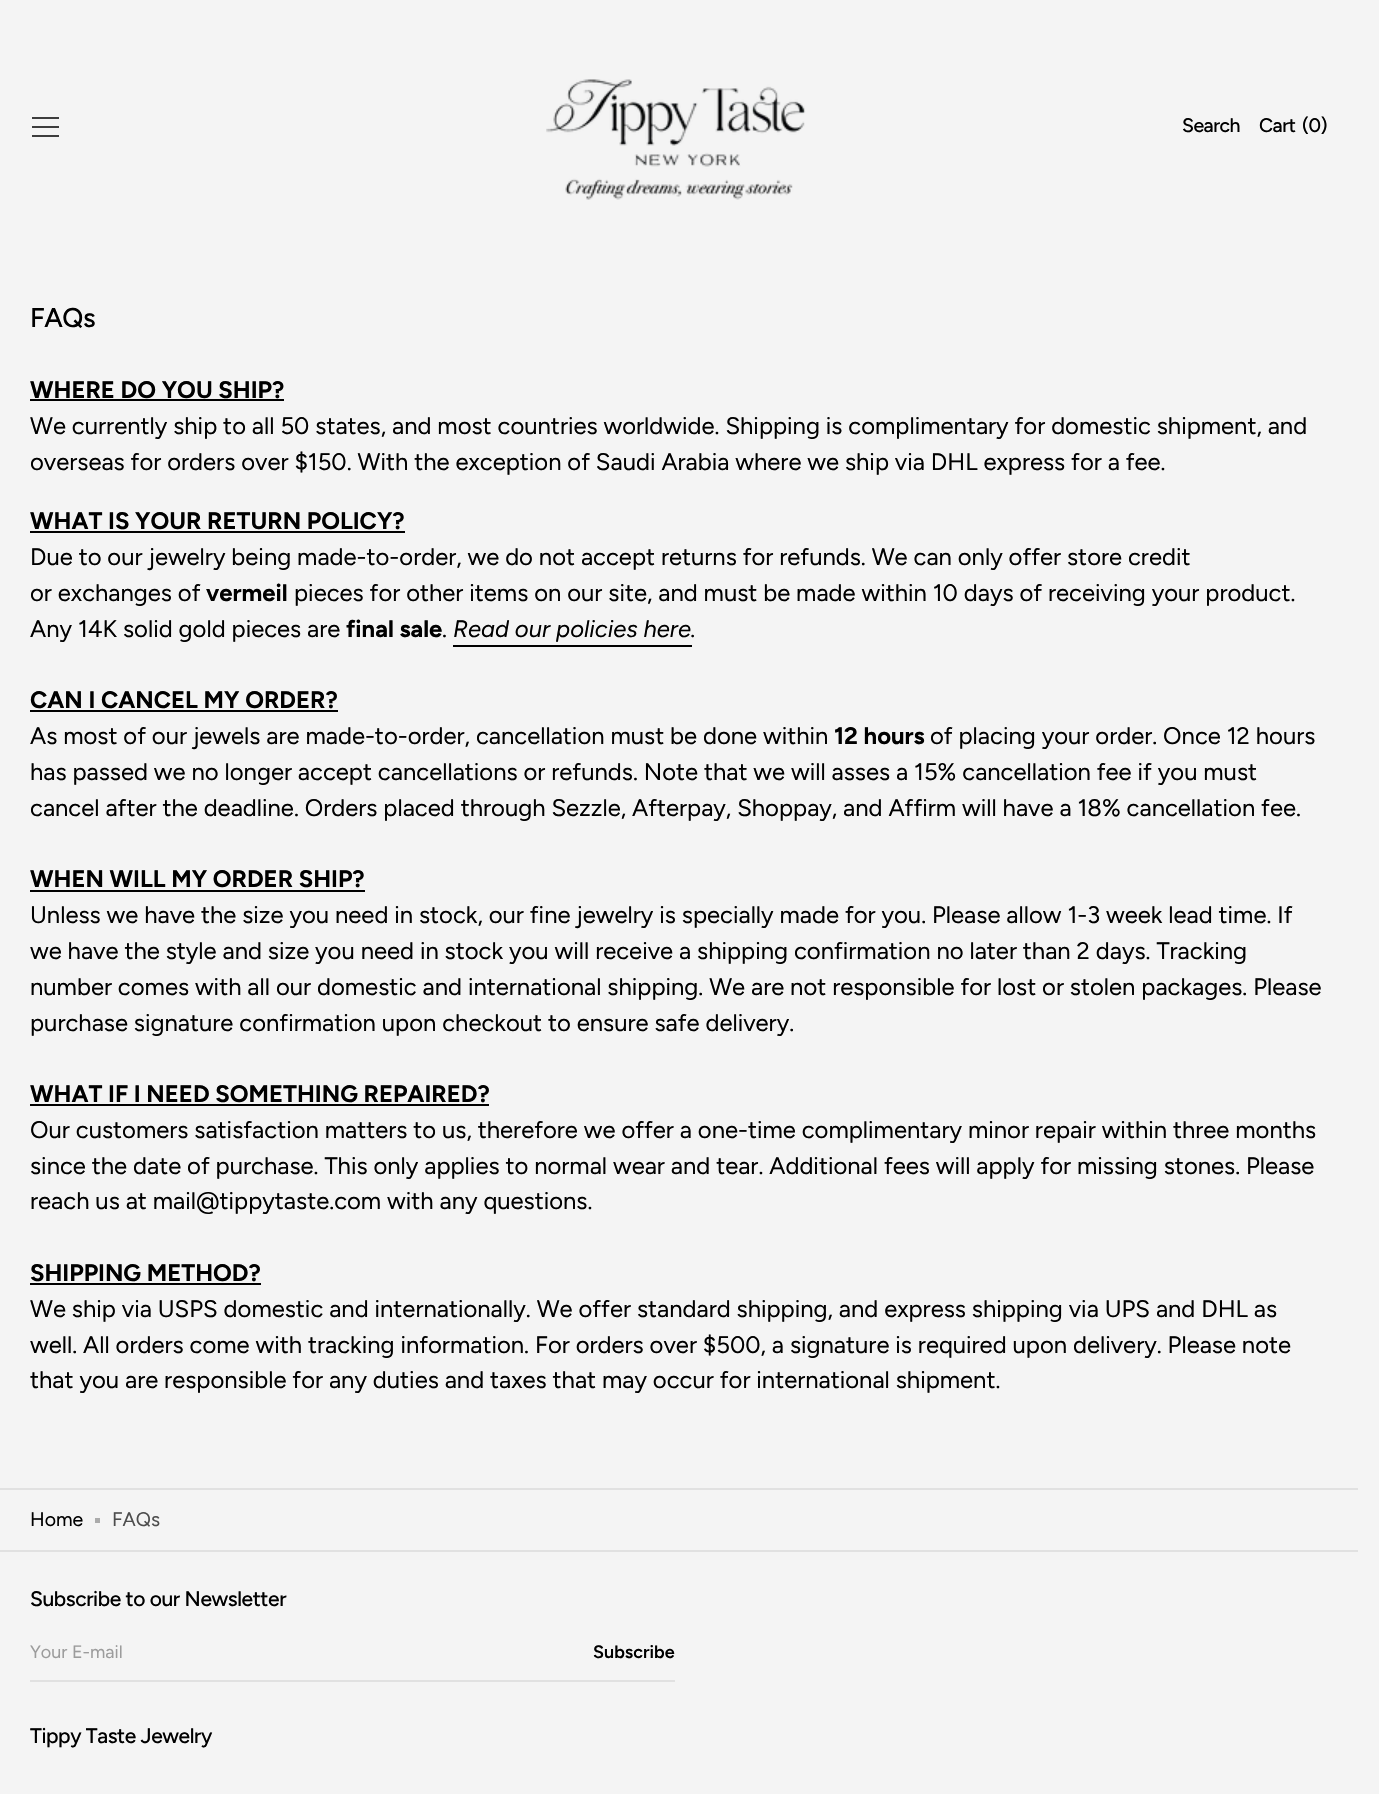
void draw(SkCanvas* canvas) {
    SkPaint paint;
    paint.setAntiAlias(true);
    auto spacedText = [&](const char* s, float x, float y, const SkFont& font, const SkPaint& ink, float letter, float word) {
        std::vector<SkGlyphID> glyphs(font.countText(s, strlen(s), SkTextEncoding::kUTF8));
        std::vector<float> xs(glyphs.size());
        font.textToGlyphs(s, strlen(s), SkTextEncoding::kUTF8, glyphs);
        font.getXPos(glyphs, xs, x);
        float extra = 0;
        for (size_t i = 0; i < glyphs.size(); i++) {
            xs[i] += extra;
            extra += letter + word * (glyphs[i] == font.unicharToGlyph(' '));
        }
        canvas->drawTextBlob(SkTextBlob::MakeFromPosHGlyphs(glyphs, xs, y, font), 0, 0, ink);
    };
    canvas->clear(0xFFF4F4F4);
    paint.setColor(0xFF3D3D3D);
    canvas->drawRect(SkRect::MakeXYWH(32, 117, 27, 2), paint);
    canvas->drawRect(SkRect::MakeXYWH(32, 126, 27, 2), paint);
    canvas->drawRect(SkRect::MakeXYWH(32, 135, 27, 2), paint);
    canvas->drawImageRect(SkImages::DeferredFromEncodedData(SkData::MakeFromFileName("img1.png")), SkRect::MakeXYWH(546, 79, 260, 121), SkSamplingOptions());
    SkFont font1(fontMgr->matchFamilyStyle("Figtree", SkFontStyle(500, SkFontStyle::kNormal_Width, SkFontStyle::kUpright_Slant)), 19.5f);
    font1.setSubpixel(true);
    paint.setColor(0xFF000000);
    spacedText("Search", 1182, 132, font1, paint, -0.5f, 0);
    spacedText("Cart", 1259, 132, font1, paint, -0.5f, 0);
    spacedText("(0)", 1302, 132, font1, paint, -0.5f, 0);
    SkFont font2(fontMgr->matchFamilyStyle("Figtree", SkFontStyle(500, SkFontStyle::kNormal_Width, SkFontStyle::kUpright_Slant)), 27);
    font2.setSubpixel(true);
    spacedText("FAQs", 30, 327, font2, paint, -0.5f, 0);
    SkFont font3(fontMgr->matchFamilyStyle("Figtree", SkFontStyle::Bold()), 23.85f);
    font3.setSubpixel(true);
    canvas->drawString("WHERE DO YOU SHIP?", 30, 398, font3, paint);
    canvas->drawRect(SkRect::MakeXYWH(30, 399, 254, 2), paint);
    SkFont font4(fontMgr->matchFamilyStyle("Figtree", SkFontStyle::Normal()), 23.85f);
    font4.setSubpixel(true);
    canvas->drawString("We currently ship to all 50 states, and most countries worldwide. Shipping is complimentary for domestic shipment, and", 30, 434, font4, paint);
    canvas->drawString("overseas for orders over $150. With the exception of Saudi Arabia where we ship via DHL express for a fee.", 30, 470, font4, paint);
    canvas->drawString("WHAT IS YOUR RETURN POLICY?", 30, 529, font3, paint);
    canvas->drawRect(SkRect::MakeXYWH(30, 531, 375, 2), paint);
    canvas->drawString("Due to our jewelry being made-to-order, we do not accept returns for refunds. We can only offer store credit", 30, 565, font4, paint);
    canvas->drawString("or exchanges of", 30, 601, font4, paint);
    canvas->drawString("vermeil", 206, 601, font3, paint);
    canvas->drawString("pieces for other items on our site, and must be made within 10 days of receiving your product.", 294, 601, font4, paint);
    canvas->drawString("Any 14K solid gold pieces are", 30, 637, font4, paint);
    canvas->drawString("final sale", 346, 637, font3, paint);
    canvas->drawString(".", 442, 637, font4, paint);
    SkFont font5(fontMgr->matchFamilyStyle("Figtree", SkFontStyle::Italic()), 23.85f);
    font5.setSubpixel(true);
    canvas->drawString("Read our policies here.", 453, 637, font5, paint);
    canvas->drawRect(SkRect::MakeXYWH(453, 645, 239, 2), paint);
    canvas->drawString("CAN I CANCEL MY ORDER?", 30, 708, font3, paint);
    canvas->drawRect(SkRect::MakeXYWH(30, 710, 308, 2), paint);
    canvas->drawString("As most of our jewels are made-to-order, cancellation must be done within", 30, 744, font4, paint);
    canvas->drawString("12 hours", 834, 744, font3, paint);
    canvas->drawString("of placing your order. Once 12 hours", 930, 744, font4, paint);
    canvas->drawString("has passed we no longer accept cancellations or refunds. Note that we will asses a 15% cancellation fee if you must", 30, 780, font4, paint);
    canvas->drawString("cancel after the deadline. Orders placed through Sezzle, Afterpay, Shoppay, and Affirm will have a 18% cancellation fee.", 30, 816, font4, paint);
    canvas->drawString("WHEN WILL MY ORDER SHIP?", 30, 887, font3, paint);
    canvas->drawRect(SkRect::MakeXYWH(30, 890, 335, 2), paint);
    canvas->drawString("Unless we have the size you need in stock, our fine jewelry is specially made for you. Please allow 1-3 week lead time. If", 30, 923, font4, paint);
    canvas->drawString("we have the style and size you need in stock you will receive a shipping confirmation no later than 2 days. Tracking", 30, 959, font4, paint);
    canvas->drawString("number comes with all our domestic and international shipping. We are not responsible for lost or stolen packages. Please", 30, 995, font4, paint);
    canvas->drawString("purchase signature confirmation upon checkout to ensure safe delivery.", 30, 1031, font4, paint);
    canvas->drawString("WHAT IF I NEED SOMETHING REPAIRED?", 30, 1102, font3, paint);
    canvas->drawRect(SkRect::MakeXYWH(30, 1104, 459, 2), paint);
    canvas->drawString("Our customers satisfaction matters to us, therefore we offer a one-time complimentary minor repair within three months", 30, 1138, font4, paint);
    canvas->drawString("since the date of purchase. This only applies to normal wear and tear. Additional fees will apply for missing stones. Please", 30, 1174, font4, paint);
    canvas->drawString("reach us at mail@tippytaste.com with any questions.", 30, 1209, font4, paint);
    canvas->drawString("SHIPPING METHOD?", 30, 1281, font3, paint);
    canvas->drawRect(SkRect::MakeXYWH(30, 1283, 231, 2), paint);
    canvas->drawString("We ship via USPS domestic and internationally. We offer standard shipping, and express shipping via UPS and DHL as", 30, 1317, font4, paint);
    canvas->drawString("well. All orders come with tracking information. For orders over $500, a signature is required upon delivery. Please note", 30, 1353, font4, paint);
    canvas->drawString("that you are responsible for any duties and taxes that may occur for international shipment.", 30, 1388, font4, paint);
    paint.setColor(0xFFE1E1E1);
    canvas->drawRect(SkRect::MakeXYWH(0, 1488, 1358, 2), paint);
    SkFont font6(fontMgr->matchFamilyStyle("Figtree", SkFontStyle::Normal()), 19.5f);
    font6.setSubpixel(true);
    paint.setColor(0xFF000000);
    canvas->drawString("Home", 30, 1526, font6, paint);
    paint.setColor(0xFFABABAB);
    canvas->drawRect(SkRect::MakeXYWH(95, 1518, 5, 5), paint);
    paint.setColor(0xFF4D4D4D);
    canvas->drawString("FAQs", 112, 1526, font6, paint);
    paint.setColor(0xFFE1E1E1);
    canvas->drawRect(SkRect::MakeXYWH(0, 1550, 1358, 2), paint);
    SkFont font7(fontMgr->matchFamilyStyle("Figtree", SkFontStyle(500, SkFontStyle::kNormal_Width, SkFontStyle::kUpright_Slant)), 21);
    font7.setSubpixel(true);
    paint.setColor(0xFF000000);
    spacedText("Subscribe to our Newsletter", 30, 1606, font7, paint, -0.4f, 0);
    paint.setColor(0xFFE1E1E1);
    canvas->drawRect(SkRect::MakeXYWH(30, 1680, 645, 2), paint);
    SkFont font8(fontMgr->matchFamilyStyle("Figtree", SkFontStyle::Normal()), 18);
    font8.setSubpixel(true);
    paint.setColor(0xFF9C9C9C);
    canvas->drawString("Your E-mail", 30, 1658, font8, paint);
    SkFont font9(fontMgr->matchFamilyStyle("Figtree", SkFontStyle(600, SkFontStyle::kNormal_Width, SkFontStyle::kUpright_Slant)), 18);
    font9.setSubpixel(true);
    paint.setColor(0xFF000000);
    canvas->drawString("Subscribe", 593, 1658, font9, paint);
    spacedText("Tippy Taste Jewelry", 30, 1743, font7, paint, -0.4f, 0);
}
